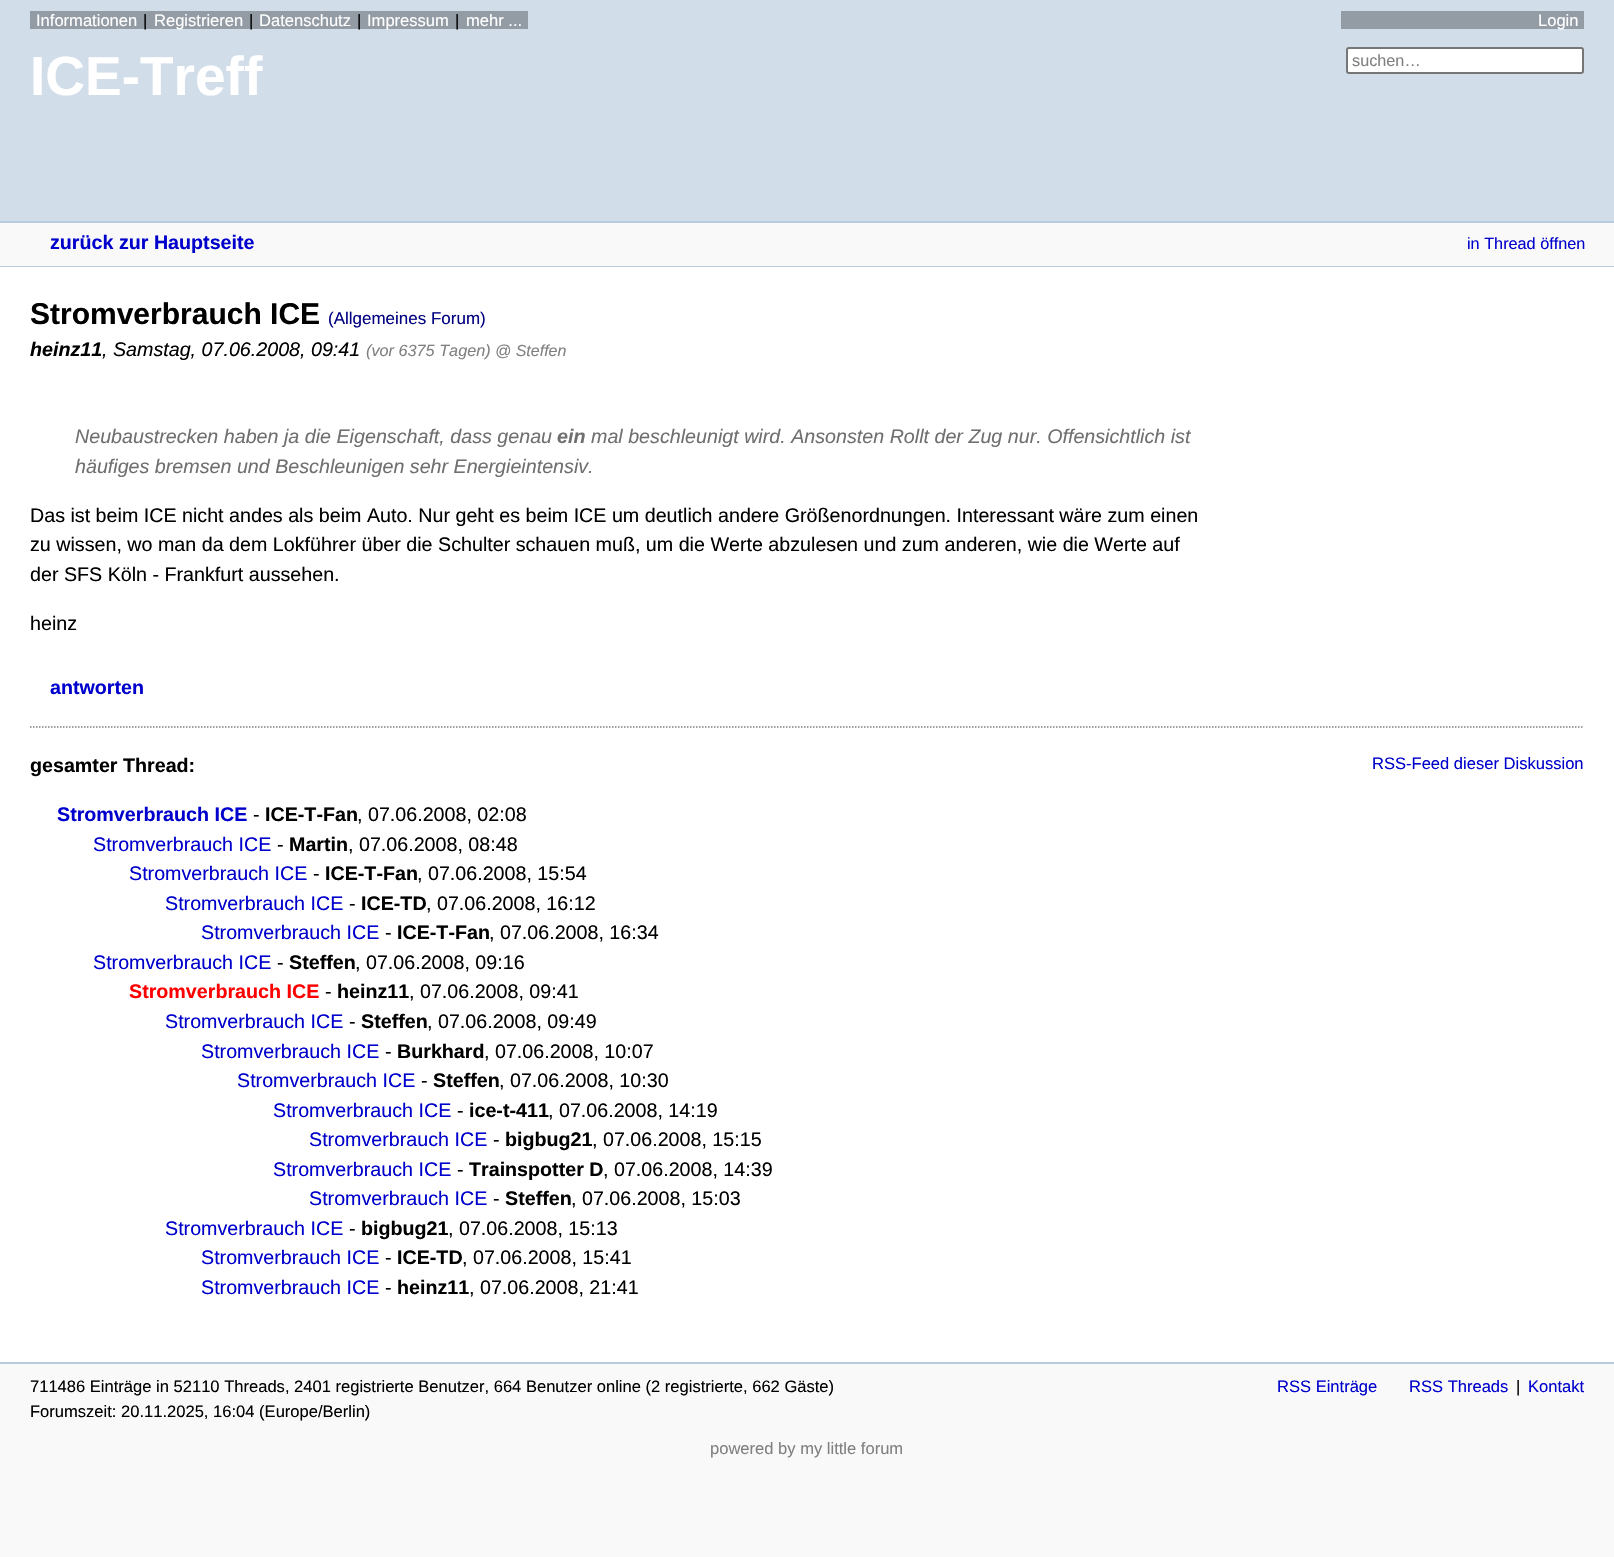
void draw(SkCanvas* canvas) {
    SkPaint paint;
    paint.setAntiAlias(true);
    canvas->clear(0xFFF9F9F9);
    paint.setColor(0xFFD2DDEA);
    canvas->drawRect(SkRect::MakeXYWH(0, 0, 1614, 221), paint);
    paint.setColor(0xFF939BA4);
    canvas->drawRect(SkRect::MakeXYWH(30, 11, 498, 18), paint);
    SkFont font1(fontMgr->matchFamilyStyle("Liberation Sans", SkFontStyle::Normal()), 16.55f);
    font1.setSubpixel(true);
    paint.setColor(0xFFFFFFFF);
    canvas->drawString("Informationen", 36, 26, font1, paint);
    paint.setColor(0xFF000000);
    canvas->drawString("|", 143, 26, font1, paint);
    paint.setColor(0xFFFFFFFF);
    canvas->drawString("Registrieren", 154, 26, font1, paint);
    paint.setColor(0xFF000000);
    canvas->drawString("|", 249, 26, font1, paint);
    paint.setColor(0xFFFFFFFF);
    canvas->drawString("Datenschutz", 259, 26, font1, paint);
    paint.setColor(0xFF000000);
    canvas->drawString("|", 357, 26, font1, paint);
    paint.setColor(0xFFFFFFFF);
    canvas->drawString("Impressum", 367, 26, font1, paint);
    paint.setColor(0xFF000000);
    canvas->drawString("|", 455, 26, font1, paint);
    paint.setColor(0xFFFFFFFF);
    canvas->drawString("mehr ...", 466, 26, font1, paint);
    SkFont font2(fontMgr->matchFamilyStyle("Liberation Sans", SkFontStyle::Bold()), 55);
    font2.setSubpixel(true);
    canvas->drawString("ICE-Treff", 30, 95, font2, paint);
    paint.setColor(0xFF939BA4);
    canvas->drawRect(SkRect::MakeXYWH(1341, 11, 243, 18), paint);
    paint.setColor(0xFFFFFFFF);
    canvas->drawString("Login", 1538, 26, font1, paint);
    canvas->drawRoundRect(SkRect::MakeXYWH(1347, 48, 236, 25), 2, 2, paint);
    paint.setStyle(SkPaint::kStroke_Style);
    paint.setStrokeWidth(2);
    paint.setColor(0xFF767676);
    canvas->drawRoundRect(SkRect::MakeXYWH(1347, 48, 236, 25), 2, 2, paint);
    SkFont font3(fontMgr->matchFamilyStyle("Liberation Sans", SkFontStyle::Normal()), 16.25f);
    font3.setSubpixel(true);
    paint.setStyle(SkPaint::kFill_Style);
    paint.setColor(0xFF808080);
    canvas->drawString("suchen…", 1352, 66, font3, paint);
    paint.setColor(0xFFBACBDF);
    canvas->drawRect(SkRect::MakeXYWH(0, 221, 1614, 2), paint);
    canvas->drawRect(SkRect::MakeXYWH(0, 266, 1614, 1), paint);
    SkFont font4(fontMgr->matchFamilyStyle("Liberation Sans", SkFontStyle::Bold()), 19.68f);
    font4.setSubpixel(true);
    paint.setColor(0xFF0000CC);
    canvas->drawString("zurück zur Hauptseite", 50, 249, font4, paint);
    canvas->drawString("in Thread öffnen", 1467, 249, font3, paint);
    paint.setColor(0xFFFFFFFF);
    canvas->drawRect(SkRect::MakeXYWH(0, 267, 1614, 1095), paint);
    SkFont font5(fontMgr->matchFamilyStyle("Liberation Sans", SkFontStyle::Bold()), 30);
    font5.setSubpixel(true);
    paint.setColor(0xFF000000);
    canvas->drawString("Stromverbrauch ICE", 30, 324, font5, paint);
    SkFont font6(fontMgr->matchFamilyStyle("Liberation Sans", SkFontStyle::Normal()), 17);
    font6.setSubpixel(true);
    paint.setColor(0xFF000080);
    canvas->drawString("(Allgemeines Forum)", 328, 324, font6, paint);
    SkFont font7(fontMgr->matchFamilyStyle("Liberation Sans", SkFontStyle::BoldItalic()), 19.68f);
    font7.setSubpixel(true);
    paint.setColor(0xFF000000);
    canvas->drawString("heinz11", 30, 356, font7, paint);
    SkFont font8(fontMgr->matchFamilyStyle("Liberation Sans", SkFontStyle::Italic()), 19.68f);
    font8.setSubpixel(true);
    canvas->drawString(", Samstag, 07.06.2008, 09:41", 102, 356, font8, paint);
    SkFont font9(fontMgr->matchFamilyStyle("Liberation Sans", SkFontStyle::Italic()), 16.25f);
    font9.setSubpixel(true);
    paint.setColor(0xFF808080);
    canvas->drawString("(vor 6375 Tagen)", 366, 356, font9, paint);
    SkFont font10(fontMgr->matchFamilyStyle("Liberation Sans", SkFontStyle::Italic()), 16);
    font10.setSubpixel(true);
    canvas->drawString("@ Steffen", 495, 356, font10, paint);
    paint.setColor(0xFF6F6F6F);
    canvas->drawString("Neubaustrecken haben ja die Eigenschaft, dass genau", 75, 443, font8, paint);
    canvas->drawString("ein", 557, 443, font7, paint);
    canvas->drawString("mal beschleunigt wird. Ansonsten Rollt der Zug nur. Offensichtlich ist", 591, 443, font8, paint);
    canvas->drawString("häufiges bremsen und Beschleunigen sehr Energieintensiv.", 75, 473, font8, paint);
    SkFont font11(fontMgr->matchFamilyStyle("Liberation Sans", SkFontStyle::Normal()), 19.68f);
    font11.setSubpixel(true);
    paint.setColor(0xFF000000);
    canvas->drawString("Das ist beim ICE nicht andes als beim Auto. Nur geht es beim ICE um deutlich andere Größenordnungen. Interessant wäre zum einen", 30, 522, font11, paint);
    canvas->drawString("zu wissen, wo man da dem Lokführer über die Schulter schauen muß, um die Werte abzulesen und zum anderen, wie die Werte auf", 30, 551, font11, paint);
    canvas->drawString("der SFS Köln - Frankfurt aussehen.", 30, 581, font11, paint);
    canvas->drawString("heinz", 30, 630, font11, paint);
    paint.setColor(0xFF0000CC);
    canvas->drawString("antworten", 50, 694, font4, paint);
    paint.setStyle(SkPaint::kStroke_Style);
    paint.setStrokeWidth(1.5f);
    paint.setColor(0xFF808080);
    paint.setPathEffect(SkDashPathEffect::Make({{1.5f, 1.5f}}, 0));
    canvas->drawPath(SkPathBuilder().moveTo(30, 727).lineTo(1584, 727).detach(), paint);
    paint.setPathEffect(nullptr);
    paint.setStyle(SkPaint::kFill_Style);
    paint.setColor(0xFF000000);
    canvas->drawString("gesamter Thread:", 30, 772, font4, paint);
    paint.setColor(0xFF0000CC);
    canvas->drawString("RSS-Feed dieser Diskussion", 1372, 769, font1, paint);
    canvas->drawString("Stromverbrauch ICE", 57, 821, font4, paint);
    paint.setColor(0xFF000000);
    canvas->drawString("-", 253, 821, font11, paint);
    canvas->drawString("ICE-T-Fan", 265, 821, font4, paint);
    canvas->drawString(", 07.06.2008, 02:08", 357, 821, font11, paint);
    paint.setColor(0xFF0000CC);
    canvas->drawString("Stromverbrauch ICE", 93, 851, font11, paint);
    paint.setColor(0xFF000000);
    canvas->drawString("-", 277, 851, font11, paint);
    canvas->drawString("Martin", 289, 851, font4, paint);
    canvas->drawString(", 07.06.2008, 08:48", 348, 851, font11, paint);
    paint.setColor(0xFF0000CC);
    canvas->drawString("Stromverbrauch ICE", 129, 880, font11, paint);
    paint.setColor(0xFF000000);
    canvas->drawString("-", 313, 880, font11, paint);
    canvas->drawString("ICE-T-Fan", 325, 880, font4, paint);
    canvas->drawString(", 07.06.2008, 15:54", 417, 880, font11, paint);
    paint.setColor(0xFF0000CC);
    canvas->drawString("Stromverbrauch ICE", 165, 910, font11, paint);
    paint.setColor(0xFF000000);
    canvas->drawString("-", 349, 910, font11, paint);
    canvas->drawString("ICE-TD", 361, 910, font4, paint);
    canvas->drawString(", 07.06.2008, 16:12", 426, 910, font11, paint);
    paint.setColor(0xFF0000CC);
    canvas->drawString("Stromverbrauch ICE", 201, 939, font11, paint);
    paint.setColor(0xFF000000);
    canvas->drawString("-", 385, 939, font11, paint);
    canvas->drawString("ICE-T-Fan", 397, 939, font4, paint);
    canvas->drawString(", 07.06.2008, 16:34", 489, 939, font11, paint);
    paint.setColor(0xFF0000CC);
    canvas->drawString("Stromverbrauch ICE", 93, 969, font11, paint);
    paint.setColor(0xFF000000);
    canvas->drawString("-", 277, 969, font11, paint);
    canvas->drawString("Steffen", 289, 969, font4, paint);
    canvas->drawString(", 07.06.2008, 09:16", 355, 969, font11, paint);
    paint.setColor(0xFFFF0000);
    canvas->drawString("Stromverbrauch ICE", 129, 998, font4, paint);
    paint.setColor(0xFF000000);
    canvas->drawString("-", 325, 998, font11, paint);
    canvas->drawString("heinz11", 337, 998, font4, paint);
    canvas->drawString(", 07.06.2008, 09:41", 409, 998, font11, paint);
    paint.setColor(0xFF0000CC);
    canvas->drawString("Stromverbrauch ICE", 165, 1028, font11, paint);
    paint.setColor(0xFF000000);
    canvas->drawString("-", 349, 1028, font11, paint);
    canvas->drawString("Steffen", 361, 1028, font4, paint);
    canvas->drawString(", 07.06.2008, 09:49", 427, 1028, font11, paint);
    paint.setColor(0xFF0000CC);
    canvas->drawString("Stromverbrauch ICE", 201, 1058, font11, paint);
    paint.setColor(0xFF000000);
    canvas->drawString("-", 385, 1058, font11, paint);
    canvas->drawString("Burkhard", 397, 1058, font4, paint);
    canvas->drawString(", 07.06.2008, 10:07", 484, 1058, font11, paint);
    paint.setColor(0xFF0000CC);
    canvas->drawString("Stromverbrauch ICE", 237, 1087, font11, paint);
    paint.setColor(0xFF000000);
    canvas->drawString("-", 421, 1087, font11, paint);
    canvas->drawString("Steffen", 433, 1087, font4, paint);
    canvas->drawString(", 07.06.2008, 10:30", 499, 1087, font11, paint);
    paint.setColor(0xFF0000CC);
    canvas->drawString("Stromverbrauch ICE", 273, 1117, font11, paint);
    paint.setColor(0xFF000000);
    canvas->drawString("-", 457, 1117, font11, paint);
    canvas->drawString("ice-t-411", 469, 1117, font4, paint);
    canvas->drawString(", 07.06.2008, 14:19", 548, 1117, font11, paint);
    paint.setColor(0xFF0000CC);
    canvas->drawString("Stromverbrauch ICE", 309, 1146, font11, paint);
    paint.setColor(0xFF000000);
    canvas->drawString("-", 493, 1146, font11, paint);
    canvas->drawString("bigbug21", 505, 1146, font4, paint);
    canvas->drawString(", 07.06.2008, 15:15", 592, 1146, font11, paint);
    paint.setColor(0xFF0000CC);
    canvas->drawString("Stromverbrauch ICE", 273, 1176, font11, paint);
    paint.setColor(0xFF000000);
    canvas->drawString("-", 457, 1176, font11, paint);
    canvas->drawString("Trainspotter D", 469, 1176, font4, paint);
    canvas->drawString(", 07.06.2008, 14:39", 603, 1176, font11, paint);
    paint.setColor(0xFF0000CC);
    canvas->drawString("Stromverbrauch ICE", 309, 1205, font11, paint);
    paint.setColor(0xFF000000);
    canvas->drawString("-", 493, 1205, font11, paint);
    canvas->drawString("Steffen", 505, 1205, font4, paint);
    canvas->drawString(", 07.06.2008, 15:03", 571, 1205, font11, paint);
    paint.setColor(0xFF0000CC);
    canvas->drawString("Stromverbrauch ICE", 165, 1235, font11, paint);
    paint.setColor(0xFF000000);
    canvas->drawString("-", 349, 1235, font11, paint);
    canvas->drawString("bigbug21", 361, 1235, font4, paint);
    canvas->drawString(", 07.06.2008, 15:13", 448, 1235, font11, paint);
    paint.setColor(0xFF0000CC);
    canvas->drawString("Stromverbrauch ICE", 201, 1264, font11, paint);
    paint.setColor(0xFF000000);
    canvas->drawString("-", 385, 1264, font11, paint);
    canvas->drawString("ICE-TD", 397, 1264, font4, paint);
    canvas->drawString(", 07.06.2008, 15:41", 462, 1264, font11, paint);
    paint.setColor(0xFF0000CC);
    canvas->drawString("Stromverbrauch ICE", 201, 1294, font11, paint);
    paint.setColor(0xFF000000);
    canvas->drawString("-", 385, 1294, font11, paint);
    canvas->drawString("heinz11", 397, 1294, font4, paint);
    canvas->drawString(", 07.06.2008, 21:41", 469, 1294, font11, paint);
    paint.setColor(0xFFBACBDF);
    canvas->drawRect(SkRect::MakeXYWH(0, 1362, 1614, 2), paint);
    paint.setColor(0xFF000000);
    canvas->drawString("711486 Einträge in 52110 Threads, 2401 registrierte Benutzer, 664 Benutzer online (2 registrierte, 662 Gäste)", 30, 1392, font1, paint);
    canvas->drawString("Forumszeit: 20.11.2025, 16:04 (Europe/Berlin)", 30, 1417, font1, paint);
    paint.setColor(0xFF0000CC);
    canvas->drawString("RSS Einträge", 1277, 1392, font1, paint);
    canvas->drawString("RSS Threads", 1409, 1392, font1, paint);
    paint.setColor(0xFF000000);
    canvas->drawString("|", 1516, 1392, font1, paint);
    paint.setColor(0xFF0000CC);
    canvas->drawString("Kontakt", 1528, 1392, font1, paint);
    paint.setColor(0xFF808080);
    canvas->drawString("powered by my little forum", 710, 1454, font1, paint);
}
